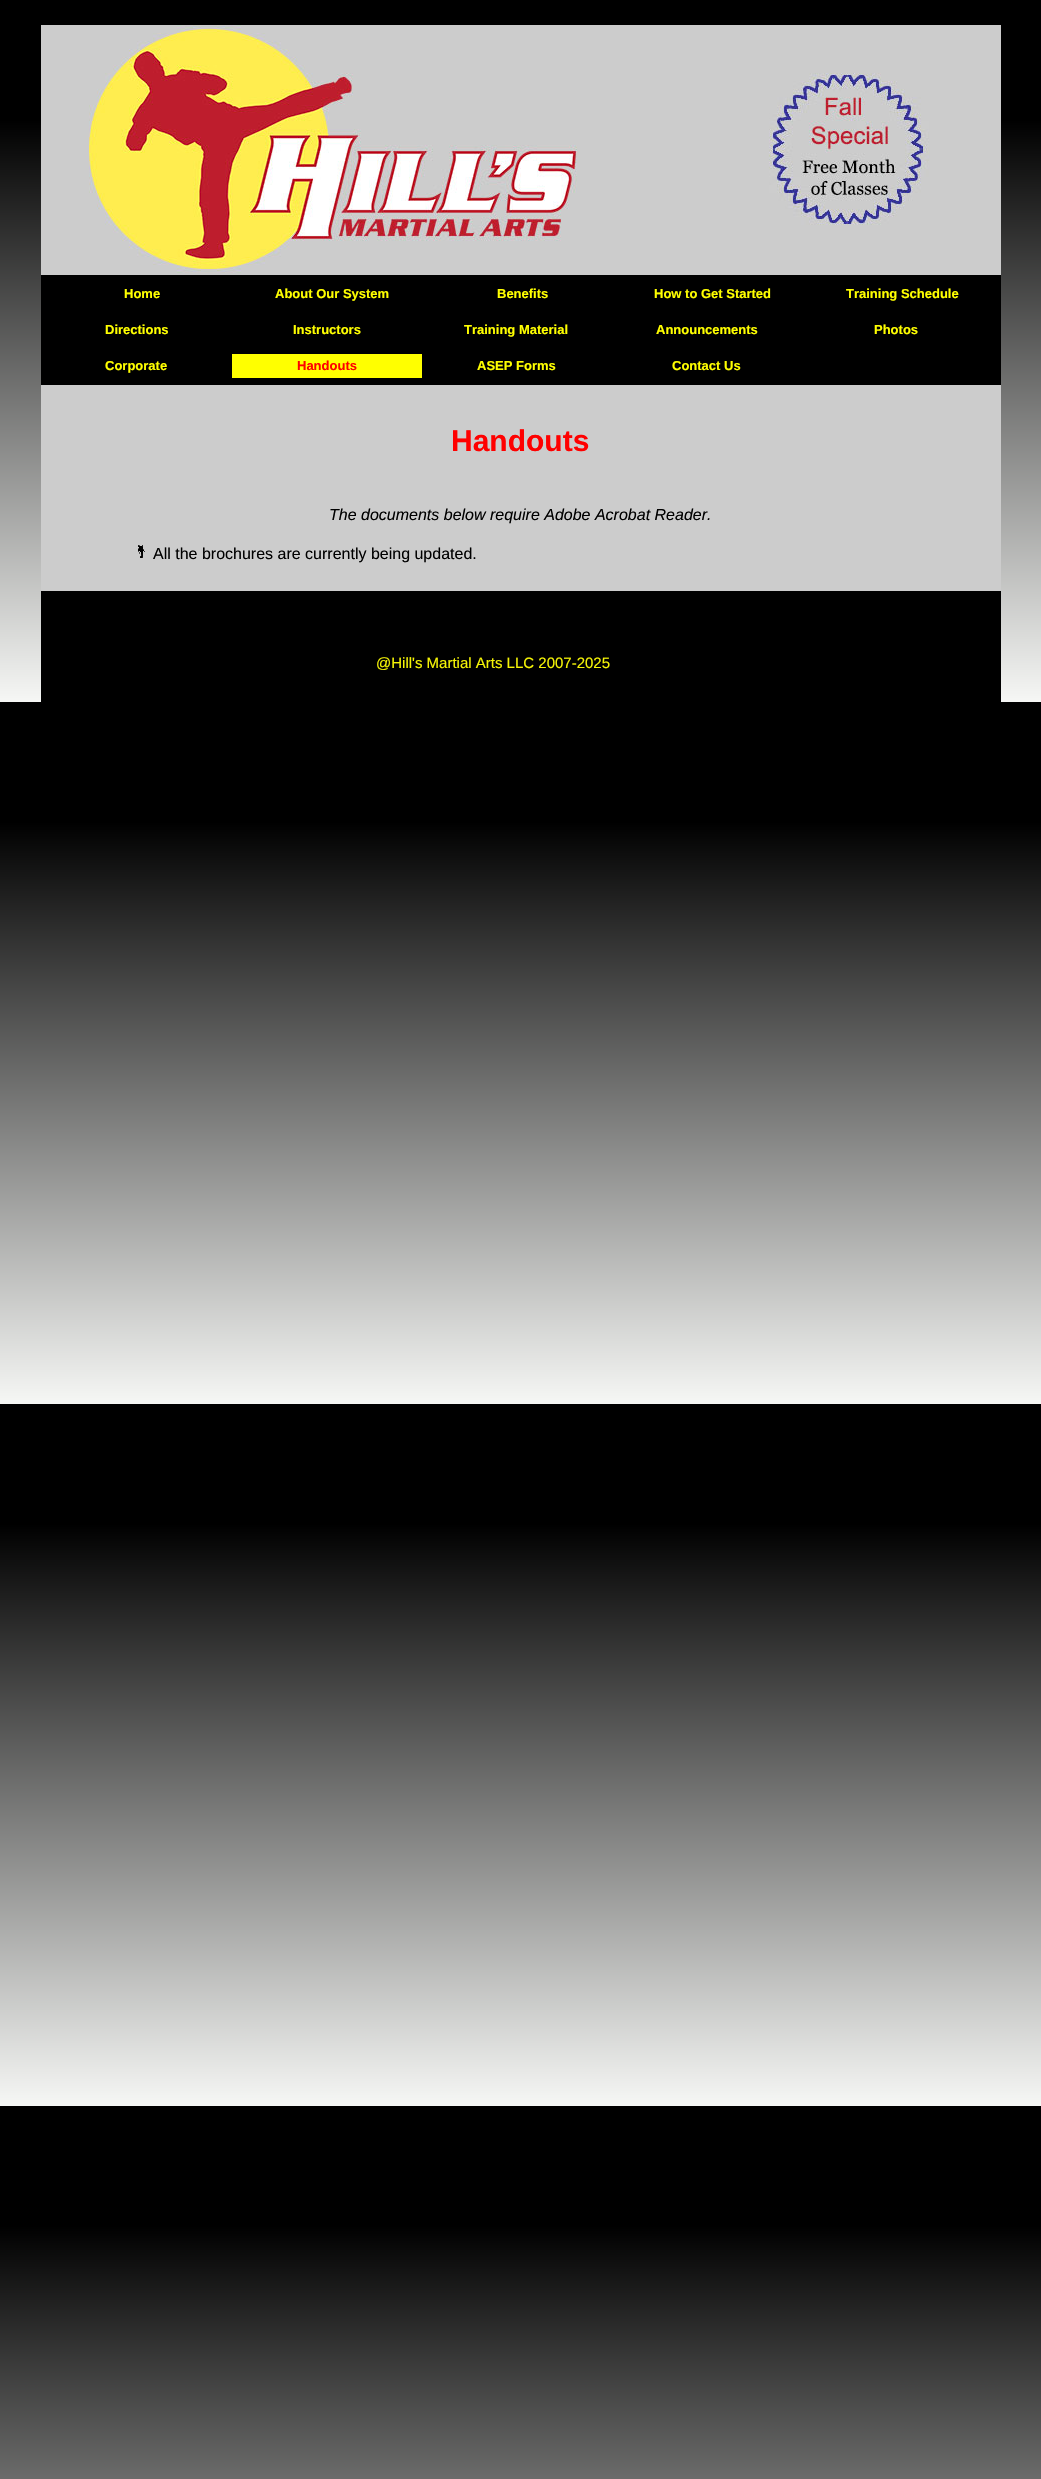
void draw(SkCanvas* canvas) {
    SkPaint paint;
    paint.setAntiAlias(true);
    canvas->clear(0xFFFFFFFF);
    {
        const SkColor colors[] = {0xFF000000, 0xFFF6F7F5};
        const float stops[] = {0.17f, 1};
        const SkPoint ends[] = {{521, 0}, {521, 702}};
        paint.setShader(SkGradientShader::MakeLinear(ends, colors, stops, 2, SkTileMode::kClamp));
        paint.setAlpha(255);
    }
    canvas->drawRect(SkRect::MakeXYWH(0, 0, 1041, 702), paint);
    {
        const SkColor colors[] = {0xFF000000, 0xFFF6F7F5};
        const float stops[] = {0.17f, 1};
        const SkPoint ends[] = {{521, 702}, {521, 1404}};
        paint.setShader(SkGradientShader::MakeLinear(ends, colors, stops, 2, SkTileMode::kClamp));
        paint.setAlpha(255);
    }
    canvas->drawRect(SkRect::MakeXYWH(0, 702, 1041, 702), paint);
    {
        const SkColor colors[] = {0xFF000000, 0xFFF6F7F5};
        const float stops[] = {0.17f, 1};
        const SkPoint ends[] = {{521, 1404}, {521, 2106}};
        paint.setShader(SkGradientShader::MakeLinear(ends, colors, stops, 2, SkTileMode::kClamp));
        paint.setAlpha(255);
    }
    canvas->drawRect(SkRect::MakeXYWH(0, 1404, 1041, 702), paint);
    {
        const SkColor colors[] = {0xFF000000, 0xFFF6F7F5};
        const float stops[] = {0.17f, 1};
        const SkPoint ends[] = {{521, 2106}, {521, 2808}};
        paint.setShader(SkGradientShader::MakeLinear(ends, colors, stops, 2, SkTileMode::kClamp));
        paint.setAlpha(255);
    }
    canvas->drawRect(SkRect::MakeXYWH(0, 2106, 1041, 373), paint);
    paint.setShader(nullptr);
    paint.setColor(0xFFCCCCCC);
    canvas->drawRect(SkRect::MakeXYWH(41, 25, 960, 566), paint);
    canvas->drawImageRect(SkImages::DeferredFromEncodedData(SkData::MakeFromFileName("img1.png")), SkRect::MakeXYWH(89, 25, 840, 248), SkSamplingOptions());
    paint.setColor(0xFF000000);
    canvas->drawRect(SkRect::MakeXYWH(41, 275, 960, 110), paint);
    SkFont font1(fontMgr->matchFamilyStyle("Liberation Sans", SkFontStyle::Bold()), 13);
    font1.setSubpixel(true);
    paint.setColor(0xFFFFFF00);
    canvas->drawString("Home", 124, 298, font1, paint);
    canvas->drawString("About Our System", 275, 298, font1, paint);
    canvas->drawString("Benefits", 497, 298, font1, paint);
    canvas->drawString("How to Get Started", 654, 298, font1, paint);
    canvas->drawString("Training Schedule", 846, 298, font1, paint);
    canvas->drawString("Directions", 105, 334, font1, paint);
    canvas->drawString("Instructors", 293, 334, font1, paint);
    canvas->drawString("Training Material", 464, 334, font1, paint);
    canvas->drawString("Announcements", 656, 334, font1, paint);
    canvas->drawString("Photos", 874, 334, font1, paint);
    canvas->drawString("Corporate", 105, 370, font1, paint);
    canvas->drawRect(SkRect::MakeXYWH(232, 354, 190, 24), paint);
    paint.setColor(0xFFFF0000);
    canvas->drawString("Handouts", 297, 370, font1, paint);
    paint.setColor(0xFFFFFF00);
    canvas->drawString("ASEP Forms", 477, 370, font1, paint);
    canvas->drawString("Contact Us", 672, 370, font1, paint);
    SkFont font2(fontMgr->matchFamilyStyle("Liberation Sans", SkFontStyle::Bold()), 30);
    font2.setSubpixel(true);
    paint.setColor(0xFFFF0000);
    canvas->drawString("Handouts", 451, 451, font2, paint);
    SkFont font3(fontMgr->matchFamilyStyle("Liberation Sans", SkFontStyle::Italic()), 16);
    font3.setSubpixel(true);
    paint.setColor(0xFF000000);
    canvas->drawString("The documents below require Adobe Acrobat Reader.", 329, 520, font3, paint);
    canvas->drawImageRect(SkImages::DeferredFromEncodedData(SkData::MakeFromFileName("img2.png")), SkRect::MakeXYWH(138, 545, 7, 13), SkSamplingOptions());
    SkFont font4(fontMgr->matchFamilyStyle("Liberation Sans", SkFontStyle::Normal()), 16);
    font4.setSubpixel(true);
    canvas->drawString("All the brochures are currently being updated.", 153, 559, font4, paint);
    canvas->drawRect(SkRect::MakeXYWH(41, 591, 960, 111), paint);
    SkFont font5(fontMgr->matchFamilyStyle("Liberation Sans", SkFontStyle::Normal()), 15);
    font5.setSubpixel(true);
    paint.setColor(0xFFF5F406);
    canvas->drawString("@Hill's Martial Arts LLC 2007-2025", 376, 668, font5, paint);
}
